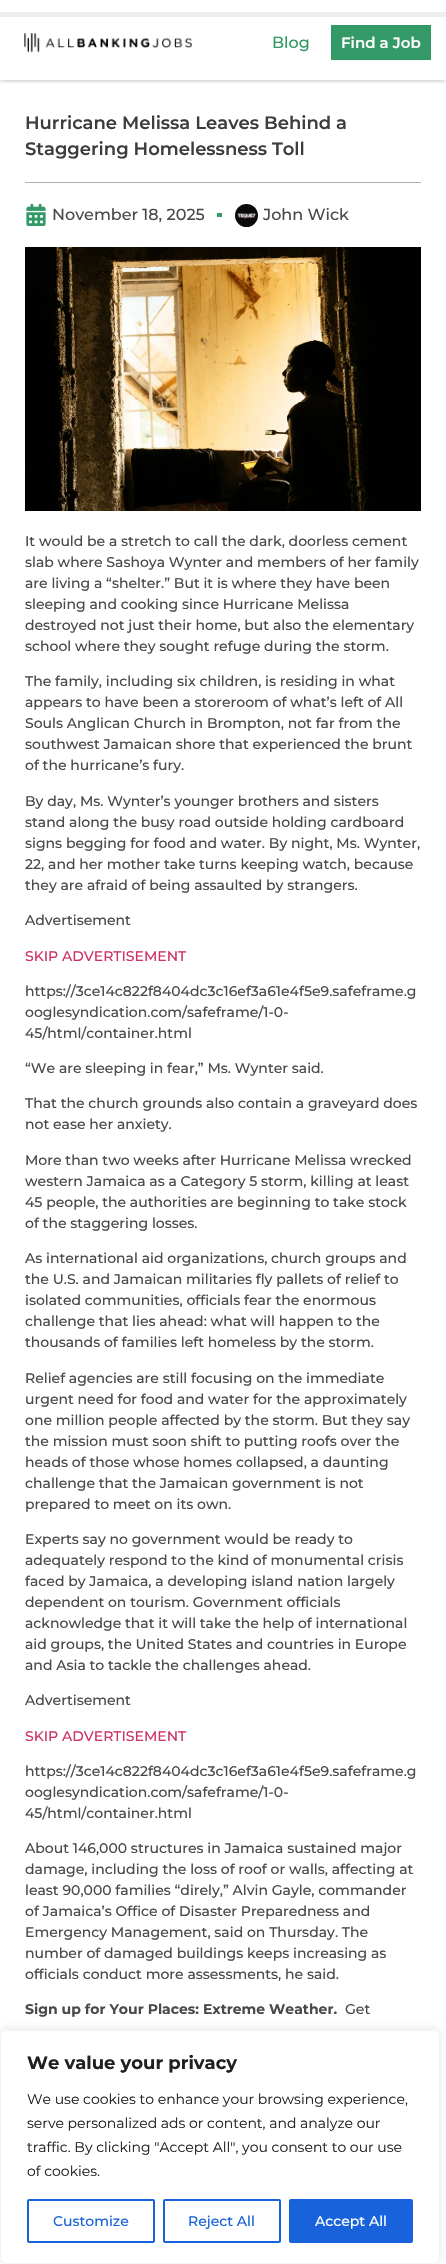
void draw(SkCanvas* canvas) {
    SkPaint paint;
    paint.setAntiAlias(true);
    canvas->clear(0xFFFFFFFF);
    canvas->save();
    canvas->clipRect(SkRect::MakeXYWH(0, 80, 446, 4));
    paint.setColor(0x80616161);
    paint.setMaskFilter(SkMaskFilter::MakeBlur(kNormal_SkBlurStyle, 2.5f));
    canvas->drawRect(SkRect::MakeXYWH(0, 0, 446, 80), paint);
    paint.setMaskFilter(nullptr);
    canvas->restore();
    paint.setColor(0xFFEEEEEE);
    canvas->drawRect(SkRect::MakeXYWH(0, 12, 446, 5), paint);
    canvas->drawImageRect(SkImages::DeferredFromEncodedData(SkData::MakeFromFileName("img1.png")), SkRect::MakeXYWH(24, 33, 168, 20), SkSamplingOptions());
    SkFont font1(fontMgr->matchFamilyStyle("Montserrat", SkFontStyle(500, SkFontStyle::kNormal_Width, SkFontStyle::kUpright_Slant)), 16);
    font1.setSubpixel(true);
    paint.setColor(0xFF339966);
    canvas->drawString("Blog", 272, 48, font1, paint);
    canvas->drawRect(SkRect::MakeXYWH(331, 25, 100, 35), paint);
    SkFont font2(fontMgr->matchFamilyStyle("Montserrat", SkFontStyle(600, SkFontStyle::kNormal_Width, SkFontStyle::kUpright_Slant)), 15);
    font2.setSubpixel(true);
    paint.setColor(0xFFFFFFFF);
    canvas->drawString("Find a Job", 341, 48, font2, paint);
    paint.setColor(0xFFAFAFAF);
    canvas->drawRect(SkRect::MakeXYWH(25, 182, 396, 1), paint);
    SkFont font3(fontMgr->matchFamilyStyle("Montserrat", SkFontStyle(600, SkFontStyle::kNormal_Width, SkFontStyle::kUpright_Slant)), 18);
    font3.setSubpixel(true);
    paint.setColor(0xFF3D3D3D);
    canvas->drawString("Hurricane Melissa Leaves Behind a", 25, 129, font3, paint);
    canvas->drawString("Staggering Homelessness Toll", 25, 155, font3, paint);
    canvas->drawImageRect(SkImages::DeferredFromEncodedData(SkData::MakeFromFileName("img2.png")), SkRect::MakeXYWH(26, 204, 20, 22), SkSamplingOptions());
    paint.setColor(0xFF4A4A4A);
    canvas->drawString("November 18, 2025", 52, 220, font1, paint);
    paint.setColor(0xFF339966);
    canvas->drawRect(SkRect::MakeXYWH(217, 213, 5, 4), paint);
    canvas->drawImageRect(SkImages::DeferredFromEncodedData(SkData::MakeFromFileName("img3.png")), SkRect::MakeXYWH(235, 204, 23, 23), SkSamplingOptions());
    paint.setColor(0xFF4A4A4A);
    canvas->drawString("John Wick", 263, 220, font1, paint);
    canvas->drawImageRect(SkImages::DeferredFromEncodedData(SkData::MakeFromFileName("img4.png")), SkRect::MakeXYWH(25, 247, 396, 264), SkSamplingOptions());
    SkFont font4(fontMgr->matchFamilyStyle("Montserrat", SkFontStyle(500, SkFontStyle::kNormal_Width, SkFontStyle::kUpright_Slant)), 14);
    font4.setSubpixel(true);
    canvas->drawString("It would be a stretch to call the dark, doorless cement", 25, 546, font4, paint);
    canvas->drawString("slab where Sashoya Wynter and members of her family", 25, 567, font4, paint);
    canvas->drawString("are living a “shelter.” But it is where they have been", 25, 588, font4, paint);
    canvas->drawString("sleeping and cooking since Hurricane Melissa", 25, 609, font4, paint);
    canvas->drawString("destroyed not just their home, but also the elementary", 25, 630, font4, paint);
    canvas->drawString("school where they sought refuge during the storm.", 25, 651, font4, paint);
    canvas->drawString("The family, including six children, is residing in what", 25, 686, font4, paint);
    canvas->drawString("appears to have been a storeroom of what’s left of All", 25, 707, font4, paint);
    canvas->drawString("Souls Anglican Church in Brompton, not far from the", 25, 728, font4, paint);
    canvas->drawString("southwest Jamaican shore that experienced the brunt", 25, 749, font4, paint);
    canvas->drawString("of the hurricane’s fury.", 25, 770, font4, paint);
    canvas->drawString("By day, Ms. Wynter’s younger brothers and sisters", 25, 806, font4, paint);
    canvas->drawString("stand along the busy road outside holding cardboard", 25, 827, font4, paint);
    canvas->drawString("signs begging for food and water. By night, Ms. Wynter,", 25, 848, font4, paint);
    canvas->drawString("22, and her mother take turns keeping watch, because", 25, 869, font4, paint);
    canvas->drawString("they are afraid of being assaulted by strangers.", 25, 890, font4, paint);
    canvas->drawString("Advertisement", 25, 925, font4, paint);
    paint.setColor(0xFFCC3366);
    canvas->drawString("SKIP ADVERTISEMENT", 25, 961, font4, paint);
    paint.setColor(0xFF4A4A4A);
    canvas->drawString("https://3ce14c822f8404dc3c16ef3a61e4f5e9.safeframe.g", 25, 996, font4, paint);
    canvas->drawString("ooglesyndication.com/safeframe/1-0-", 25, 1017, font4, paint);
    canvas->drawString("45/html/container.html", 25, 1038, font4, paint);
    canvas->drawString("“We are sleeping in fear,” Ms. Wynter said.", 25, 1073, font4, paint);
    canvas->drawString("That the church grounds also contain a graveyard does", 25, 1108, font4, paint);
    canvas->drawString("not ease her anxiety.", 25, 1129, font4, paint);
    canvas->drawString("More than two weeks after Hurricane Melissa wrecked", 25, 1165, font4, paint);
    canvas->drawString("western Jamaica as a Category 5 storm, killing at least", 25, 1186, font4, paint);
    canvas->drawString("45 people, the authorities are beginning to take stock", 25, 1207, font4, paint);
    canvas->drawString("of the staggering losses.", 25, 1228, font4, paint);
    canvas->drawString("As international aid organizations, church groups and", 25, 1263, font4, paint);
    canvas->drawString("the U.S. and Jamaican militaries fly pallets of relief to", 25, 1284, font4, paint);
    canvas->drawString("isolated communities, officials fear the enormous", 25, 1305, font4, paint);
    canvas->drawString("challenge that lies ahead: what will happen to the", 25, 1326, font4, paint);
    canvas->drawString("thousands of families left homeless by the storm.", 25, 1347, font4, paint);
    canvas->drawString("Relief agencies are still focusing on the immediate", 25, 1383, font4, paint);
    canvas->drawString("urgent need for food and water for the approximately", 25, 1404, font4, paint);
    canvas->drawString("one million people affected by the storm. But they say", 25, 1425, font4, paint);
    canvas->drawString("the mission must soon shift to putting roofs over the", 25, 1446, font4, paint);
    canvas->drawString("heads of those whose homes collapsed, a daunting", 25, 1467, font4, paint);
    canvas->drawString("challenge that the Jamaican government is not", 25, 1488, font4, paint);
    canvas->drawString("prepared to meet on its own.", 25, 1509, font4, paint);
    canvas->drawString("Experts say no government would be ready to", 25, 1544, font4, paint);
    canvas->drawString("adequately respond to the kind of monumental crisis", 25, 1565, font4, paint);
    canvas->drawString("faced by Jamaica, a developing island nation largely", 25, 1586, font4, paint);
    canvas->drawString("dependent on tourism. Government officials", 25, 1607, font4, paint);
    canvas->drawString("acknowledge that it will take the help of international", 25, 1628, font4, paint);
    canvas->drawString("aid groups, the United States and countries in Europe", 25, 1649, font4, paint);
    canvas->drawString("and Asia to tackle the challenges ahead.", 25, 1670, font4, paint);
    canvas->drawString("Advertisement", 25, 1705, font4, paint);
    paint.setColor(0xFFCC3366);
    canvas->drawString("SKIP ADVERTISEMENT", 25, 1741, font4, paint);
    paint.setColor(0xFF4A4A4A);
    canvas->drawString("https://3ce14c822f8404dc3c16ef3a61e4f5e9.safeframe.g", 25, 1776, font4, paint);
    canvas->drawString("ooglesyndication.com/safeframe/1-0-", 25, 1797, font4, paint);
    canvas->drawString("45/html/container.html", 25, 1818, font4, paint);
    canvas->drawString("About 146,000 structures in Jamaica sustained major", 25, 1853, font4, paint);
    canvas->drawString("damage, including the loss of roof or walls, affecting at", 25, 1874, font4, paint);
    canvas->drawString("least 90,000 families “direly,” Alvin Gayle, commander", 25, 1895, font4, paint);
    canvas->drawString("of Jamaica’s Office of Disaster Preparedness and", 25, 1916, font4, paint);
    canvas->drawString("Emergency Management, said on Thursday. The", 25, 1937, font4, paint);
    canvas->drawString("number of damaged buildings keeps increasing as", 25, 1958, font4, paint);
    canvas->drawString("officials conduct more assessments, he said.", 25, 1979, font4, paint);
    SkFont font5(fontMgr->matchFamilyStyle("Montserrat", SkFontStyle::Bold()), 14);
    font5.setSubpixel(true);
    canvas->drawString("Sign up for Your Places: Extreme Weather.", 25, 2014, font5, paint);
    canvas->drawString("Get", 345, 2014, font4, paint);
    paint.setColor(0x4DACABAB);
    paint.setMaskFilter(SkMaskFilter::MakeBlur(kNormal_SkBlurStyle, 5));
    canvas->drawRoundRect(SkRect::MakeXYWH(0, 2029, 440, 234), 6, 6, paint);
    paint.setMaskFilter(nullptr);
    paint.setColor(0xFFFFFFFF);
    canvas->drawRoundRect(SkRect::MakeXYWH(0.5f, 2030.5f, 439, 233), 5.5f, 5.5f, paint);
    paint.setStyle(SkPaint::kStroke_Style);
    paint.setStrokeWidth(1);
    paint.setColor(0xFFF4F4F4);
    canvas->drawRoundRect(SkRect::MakeXYWH(0.5f, 2030.5f, 439, 233), 5.5f, 5.5f, paint);
    SkFont font6(fontMgr->matchFamilyStyle("Montserrat", SkFontStyle::Bold()), 18);
    font6.setSubpixel(true);
    paint.setStyle(SkPaint::kFill_Style);
    paint.setColor(0xFF212121);
    canvas->drawString("We value your privacy", 27, 2069, font6, paint);
    SkFont font7(fontMgr->matchFamilyStyle("Montserrat", SkFontStyle::Normal()), 14);
    font7.setSubpixel(true);
    canvas->drawString("We use cookies to enhance your browsing experience,", 27, 2104, font7, paint);
    canvas->drawString("serve personalized ads or content, and analyze our", 27, 2128, font7, paint);
    canvas->drawString("traffic. By clicking \"Accept All\", you consent to our use", 27, 2152, font7, paint);
    canvas->drawString("of cookies.", 27, 2176, font7, paint);
    paint.setStyle(SkPaint::kStroke_Style);
    paint.setStrokeWidth(2);
    paint.setColor(0xFF1863DC);
    canvas->drawRoundRect(SkRect::MakeXYWH(28, 2200, 126, 42), 1, 1, paint);
    paint.setStyle(SkPaint::kFill_Style);
    canvas->drawString("Customize", 53, 2226, font4, paint);
    paint.setStyle(SkPaint::kStroke_Style);
    canvas->drawRoundRect(SkRect::MakeXYWH(164, 2200, 116, 42), 1, 1, paint);
    paint.setStyle(SkPaint::kFill_Style);
    canvas->drawString("Reject All", 188, 2226, font4, paint);
    canvas->drawRoundRect(SkRect::MakeXYWH(290, 2200, 122, 42), 1, 1, paint);
    paint.setStyle(SkPaint::kStroke_Style);
    canvas->drawRoundRect(SkRect::MakeXYWH(290, 2200, 122, 42), 1, 1, paint);
    paint.setStyle(SkPaint::kFill_Style);
    paint.setColor(0xFFFFFFFF);
    canvas->drawString("Accept All", 315, 2226, font4, paint);
}
